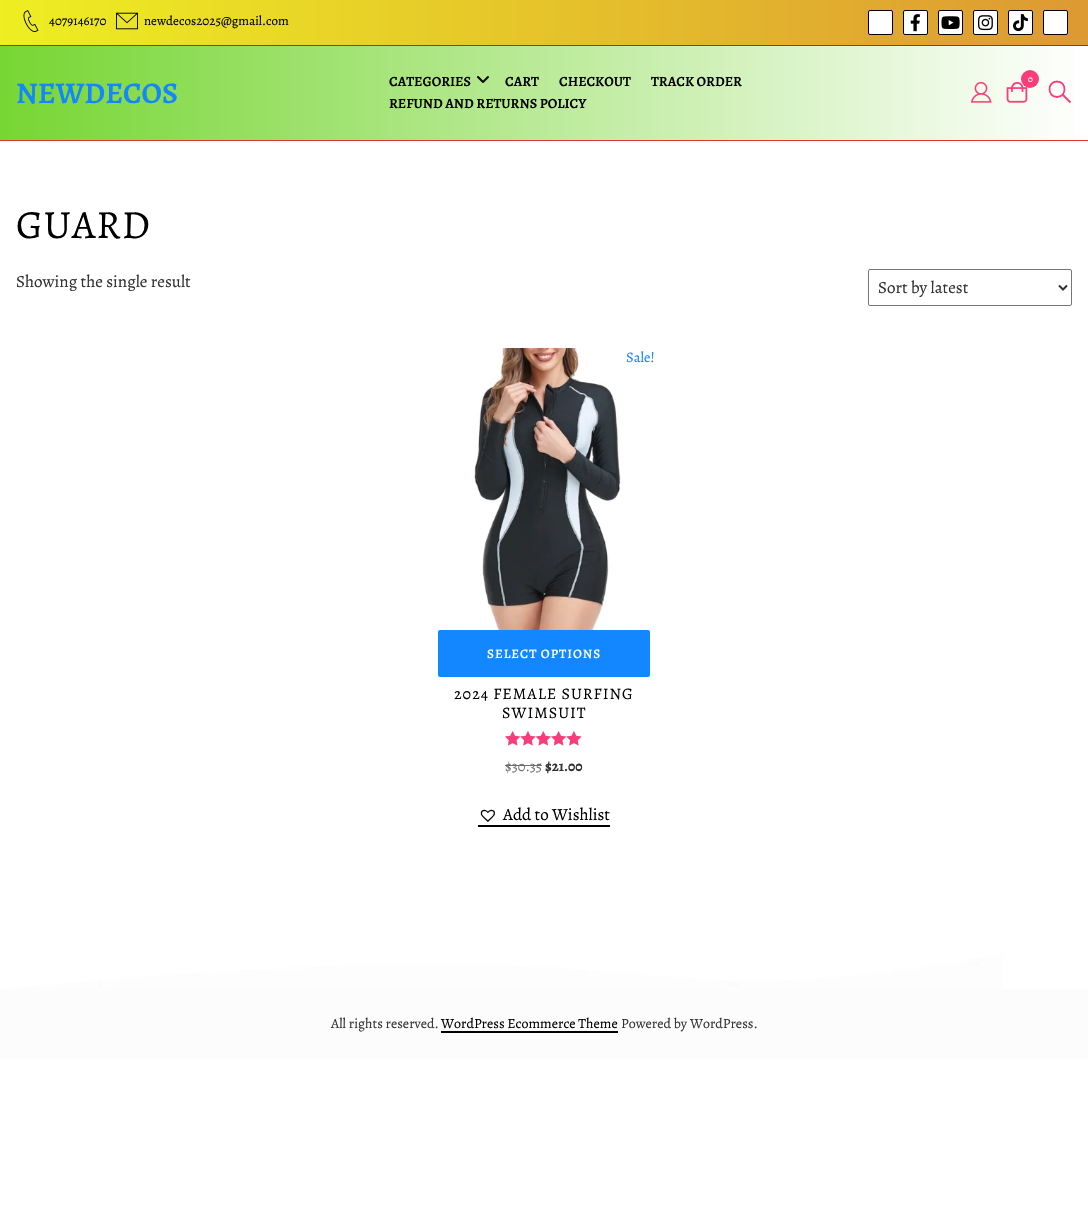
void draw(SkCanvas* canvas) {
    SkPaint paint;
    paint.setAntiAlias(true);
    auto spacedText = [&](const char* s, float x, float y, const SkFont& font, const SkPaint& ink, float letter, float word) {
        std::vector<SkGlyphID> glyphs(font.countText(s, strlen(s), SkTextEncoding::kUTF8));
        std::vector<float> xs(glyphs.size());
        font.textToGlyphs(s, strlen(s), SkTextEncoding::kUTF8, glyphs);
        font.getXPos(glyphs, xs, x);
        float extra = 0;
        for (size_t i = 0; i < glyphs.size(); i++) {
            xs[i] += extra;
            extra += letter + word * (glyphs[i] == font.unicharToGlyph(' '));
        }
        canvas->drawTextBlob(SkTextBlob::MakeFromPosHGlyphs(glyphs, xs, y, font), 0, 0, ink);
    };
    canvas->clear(0xFFFFFFFF);
    {
        const SkColor colors[] = {0xFFEEEE22, 0xFFDD9933};
        const float stops[] = {0, 1};
        const SkPoint ends[] = {{0, 23}, {1088, 22}};
        paint.setShader(SkGradientShader::MakeLinear(ends, colors, stops, 2, SkTileMode::kClamp));
        paint.setAlpha(255);
    }
    canvas->drawRect(SkRect::MakeXYWH(0, 0, 1088, 45), paint);
    paint.setShader(nullptr);
    paint.setColor(0xFF811FE2);
    canvas->drawRect(SkRect::MakeXYWH(0, 45, 1088, 1), paint);
    canvas->drawImageRect(SkImages::DeferredFromEncodedData(SkData::MakeFromFileName("img1.png")), SkRect::MakeXYWH(23, 10, 16, 22), SkSamplingOptions());
    SkFont font1(fontMgr->matchFamilyStyle("Alegreya", SkFontStyle::Normal()), 13);
    font1.setSubpixel(true);
    paint.setColor(0xFF000000);
    canvas->drawString("4079146170", 49, 25, font1, paint);
    canvas->drawImageRect(SkImages::DeferredFromEncodedData(SkData::MakeFromFileName("img2.png")), SkRect::MakeXYWH(116, 12, 22, 18), SkSamplingOptions());
    canvas->drawString("newdecos2025@gmail.com", 144, 25, font1, paint);
    paint.setColor(0xFFFFFFFF);
    canvas->drawRoundRect(SkRect::MakeXYWH(868.5f, 10.5f, 24, 24), 1.5f, 1.5f, paint);
    paint.setStyle(SkPaint::kStroke_Style);
    paint.setStrokeWidth(1);
    paint.setColor(0xFF000000);
    canvas->drawRoundRect(SkRect::MakeXYWH(868.5f, 10.5f, 24, 24), 1.5f, 1.5f, paint);
    paint.setStyle(SkPaint::kFill_Style);
    paint.setColor(0xFFFFFFFF);
    canvas->drawRoundRect(SkRect::MakeXYWH(903.5f, 10.5f, 24, 24), 1.5f, 1.5f, paint);
    paint.setStyle(SkPaint::kStroke_Style);
    paint.setColor(0xFF000000);
    canvas->drawRoundRect(SkRect::MakeXYWH(903.5f, 10.5f, 24, 24), 1.5f, 1.5f, paint);
    canvas->drawImageRect(SkImages::DeferredFromEncodedData(SkData::MakeFromFileName("img3.png")), SkRect::MakeXYWH(910, 14, 10, 18), SkSamplingOptions());
    paint.setStyle(SkPaint::kFill_Style);
    paint.setColor(0xFFFFFFFF);
    canvas->drawRoundRect(SkRect::MakeXYWH(938.5f, 10.5f, 24, 24), 1.5f, 1.5f, paint);
    paint.setStyle(SkPaint::kStroke_Style);
    paint.setColor(0xFF000000);
    canvas->drawRoundRect(SkRect::MakeXYWH(938.5f, 10.5f, 24, 24), 1.5f, 1.5f, paint);
    canvas->drawImageRect(SkImages::DeferredFromEncodedData(SkData::MakeFromFileName("img4.png")), SkRect::MakeXYWH(941, 16, 19, 13), SkSamplingOptions());
    paint.setStyle(SkPaint::kFill_Style);
    paint.setColor(0xFFFFFFFF);
    canvas->drawRoundRect(SkRect::MakeXYWH(973.5f, 10.5f, 24, 24), 1.5f, 1.5f, paint);
    paint.setStyle(SkPaint::kStroke_Style);
    paint.setColor(0xFF000000);
    canvas->drawRoundRect(SkRect::MakeXYWH(973.5f, 10.5f, 24, 24), 1.5f, 1.5f, paint);
    canvas->drawImageRect(SkImages::DeferredFromEncodedData(SkData::MakeFromFileName("img5.png")), SkRect::MakeXYWH(978, 15, 15, 16), SkSamplingOptions());
    paint.setStyle(SkPaint::kFill_Style);
    paint.setColor(0xFFFFFFFF);
    canvas->drawRoundRect(SkRect::MakeXYWH(1008.5f, 10.5f, 24, 24), 1.5f, 1.5f, paint);
    paint.setStyle(SkPaint::kStroke_Style);
    paint.setColor(0xFF000000);
    canvas->drawRoundRect(SkRect::MakeXYWH(1008.5f, 10.5f, 24, 24), 1.5f, 1.5f, paint);
    canvas->drawImageRect(SkImages::DeferredFromEncodedData(SkData::MakeFromFileName("img6.png")), SkRect::MakeXYWH(1013, 14, 15, 18), SkSamplingOptions());
    paint.setStyle(SkPaint::kFill_Style);
    paint.setColor(0xFFFFFFFF);
    canvas->drawRoundRect(SkRect::MakeXYWH(1043.5f, 10.5f, 24, 24), 1.5f, 1.5f, paint);
    paint.setStyle(SkPaint::kStroke_Style);
    paint.setColor(0xFF000000);
    canvas->drawRoundRect(SkRect::MakeXYWH(1043.5f, 10.5f, 24, 24), 1.5f, 1.5f, paint);
    paint.setStyle(SkPaint::kFill_Style);
    {
        const SkColor colors[] = {0xFF77D633, 0xFFFFFFFF};
        const float stops[] = {0, 1};
        const SkPoint ends[] = {{0, 93}, {1088, 93}};
        paint.setShader(SkGradientShader::MakeLinear(ends, colors, stops, 2, SkTileMode::kClamp));
        paint.setAlpha(255);
    }
    canvas->drawRect(SkRect::MakeXYWH(0, 46, 1075, 94), paint);
    paint.setShader(nullptr);
    paint.setColor(0xFFDD3333);
    canvas->drawRect(SkRect::MakeXYWH(0, 140, 1088, 1), paint);
    SkFont font2(fontMgr->matchFamilyStyle("Alegreya", SkFontStyle(600, SkFontStyle::kNormal_Width, SkFontStyle::kUpright_Slant)), 30);
    font2.setSubpixel(true);
    paint.setColor(0xFF1287FF);
    canvas->drawString("NEWDECOS", 16, 103, font2, paint);
    SkFont font3(fontMgr->matchFamilyStyle("Alegreya", SkFontStyle(600, SkFontStyle::kNormal_Width, SkFontStyle::kUpright_Slant)), 14);
    font3.setSubpixel(true);
    paint.setColor(0xFF000000);
    canvas->drawString("CATEGORIES", 389, 86, font3, paint);
    canvas->drawImageRect(SkImages::DeferredFromEncodedData(SkData::MakeFromFileName("img7.png")), SkRect::MakeXYWH(477, 76, 12, 7), SkSamplingOptions());
    canvas->drawString("CART", 505, 86, font3, paint);
    canvas->drawString("CHECKOUT", 559, 86, font3, paint);
    canvas->drawString("TRACK ORDER", 651, 86, font3, paint);
    canvas->drawString("REFUND AND RETURNS POLICY", 389, 108, font3, paint);
    canvas->drawImageRect(SkImages::DeferredFromEncodedData(SkData::MakeFromFileName("img8.png")), SkRect::MakeXYWH(971, 81, 21, 22), SkSamplingOptions());
    canvas->drawImageRect(SkImages::DeferredFromEncodedData(SkData::MakeFromFileName("img9.png")), SkRect::MakeXYWH(1006, 81, 22, 22), SkSamplingOptions());
    paint.setColor(0xFFFA3C7A);
    canvas->drawCircle(1030, 79, 9, paint);
    SkFont font4(fontMgr->matchFamilyStyle("Alegreya", SkFontStyle::Normal()), 9);
    font4.setSubpixel(true);
    paint.setColor(0xFFFFFFFF);
    canvas->drawString("0", 1028, 82, font4, paint);
    paint.setStyle(SkPaint::kStroke_Style);
    paint.setStrokeWidth(1.8f);
    paint.setColor(0xFFFA3C7A);
    canvas->drawPath(SkPathBuilder().moveTo(1057, 97).cubicTo(1067, 97, 1067, 81.5f, 1057, 81.5f).cubicTo(1047, 81.5f, 1047, 97, 1057, 97).close().moveTo(1070.5f, 102.5f).lineTo(1062.5f, 94.5f).detach(), paint);
    SkFont font5(fontMgr->matchFamilyStyle("Alegreya", SkFontStyle::Normal()), 40);
    font5.setSubpixel(true);
    paint.setStyle(SkPaint::kFill_Style);
    paint.setColor(0xFF000000);
    spacedText("GUARD", 16, 238, font5, paint, 1, 0);
    SkFont font6(fontMgr->matchFamilyStyle("Alegreya", SkFontStyle::Normal()), 17);
    font6.setSubpixel(true);
    paint.setColor(0xFF333333);
    canvas->drawString("Showing the single result", 16, 287, font6, paint);
    paint.setStyle(SkPaint::kStroke_Style);
    paint.setStrokeWidth(1);
    paint.setColor(0xFF767676);
    canvas->drawRoundRect(SkRect::MakeXYWH(868.5f, 269.5f, 203, 36), 1.5f, 1.5f, paint);
    paint.setStrokeWidth(2);
    paint.setColor(0xFF333333);
    canvas->drawPath(SkPathBuilder().moveTo(1059, 285.5f).lineTo(1063, 289.5f).lineTo(1067, 285.5f).detach(), paint);
    paint.setStyle(SkPaint::kFill_Style);
    canvas->drawString("Sort by latest", 878, 293, font6, paint);
    canvas->drawImageRect(SkImages::DeferredFromEncodedData(SkData::MakeFromFileName("img10.png")), SkRect::MakeXYWH(438, 348, 212, 282), SkSamplingOptions());
    SkFont font7(fontMgr->matchFamilyStyle("Alegreya", SkFontStyle::Normal()), 14.5f);
    font7.setSubpixel(true);
    paint.setColor(0xFF1287FF);
    canvas->drawString("Sale!", 626, 362, font7, paint);
    canvas->drawRoundRect(SkRect::MakeXYWH(439, 631, 210, 45), 1, 1, paint);
    paint.setStyle(SkPaint::kStroke_Style);
    canvas->drawRoundRect(SkRect::MakeXYWH(439, 631, 210, 45), 1, 1, paint);
    SkFont font8(fontMgr->matchFamilyStyle("Alegreya", SkFontStyle(500, SkFontStyle::kNormal_Width, SkFontStyle::kUpright_Slant)), 13);
    font8.setSubpixel(true);
    paint.setStyle(SkPaint::kFill_Style);
    paint.setColor(0xFFFFFFFF);
    spacedText("SELECT OPTIONS", 487, 658, font8, paint, 1, 0);
    SkFont font9(fontMgr->matchFamilyStyle("Alegreya", SkFontStyle::Normal()), 16);
    font9.setSubpixel(true);
    paint.setColor(0xFF000000);
    spacedText("2024 FEMALE SURFING", 454, 699, font9, paint, 1, 0);
    spacedText("SWIMSUIT", 502, 718, font9, paint, 1, 0);
    canvas->drawImageRect(SkImages::DeferredFromEncodedData(SkData::MakeFromFileName("img11.png")), SkRect::MakeXYWH(505, 731, 77, 15), SkSamplingOptions());
    canvas->drawImageRect(SkImages::DeferredFromEncodedData(SkData::MakeFromFileName("img12.png")), SkRect::MakeXYWH(505, 731, 77, 15), SkSamplingOptions());
    paint.setColor(0xFF707070);
    canvas->drawString("$30.35", 505, 771, font7, paint);
    canvas->drawRect(SkRect::MakeXYWH(505, 765, 37, 1), paint);
    SkFont font10(fontMgr->matchFamilyStyle("Alegreya", SkFontStyle::Bold()), 14.5f);
    font10.setSubpixel(true);
    paint.setColor(0xFF333333);
    canvas->drawString("$21.00", 545, 771, font10, paint);
    paint.setColor(0xFF000000);
    canvas->drawRect(SkRect::MakeXYWH(478, 825, 132, 2), paint);
    canvas->drawImageRect(SkImages::DeferredFromEncodedData(SkData::MakeFromFileName("img13.png")), SkRect::MakeXYWH(480, 809, 15, 13), SkSamplingOptions());
    canvas->drawString("Add to Wishlist", 503, 820, font6, paint);
    paint.setColor(0xFFFCFCFC);
    canvas->drawRect(SkRect::MakeXYWH(0, 989, 1088, 69), paint);
    canvas->drawImageRect(SkImages::DeferredFromEncodedData(SkData::MakeFromFileName("img14.png")), SkRect::MakeXYWH(11, 954, 992, 35), SkSamplingOptions());
    SkFont font11(fontMgr->matchFamilyStyle("Alegreya", SkFontStyle::Normal()), 14);
    font11.setSubpixel(true);
    paint.setColor(0xFF333333);
    canvas->drawString("All rights reserved.", 331, 1028, font11, paint);
    paint.setColor(0xFF000000);
    canvas->drawString("WordPress Ecommerce Theme", 441, 1028, font11, paint);
    canvas->drawRect(SkRect::MakeXYWH(441, 1031, 177, 2), paint);
    paint.setColor(0xFF333333);
    canvas->drawString("Powered by WordPress.", 621, 1028, font11, paint);
}
